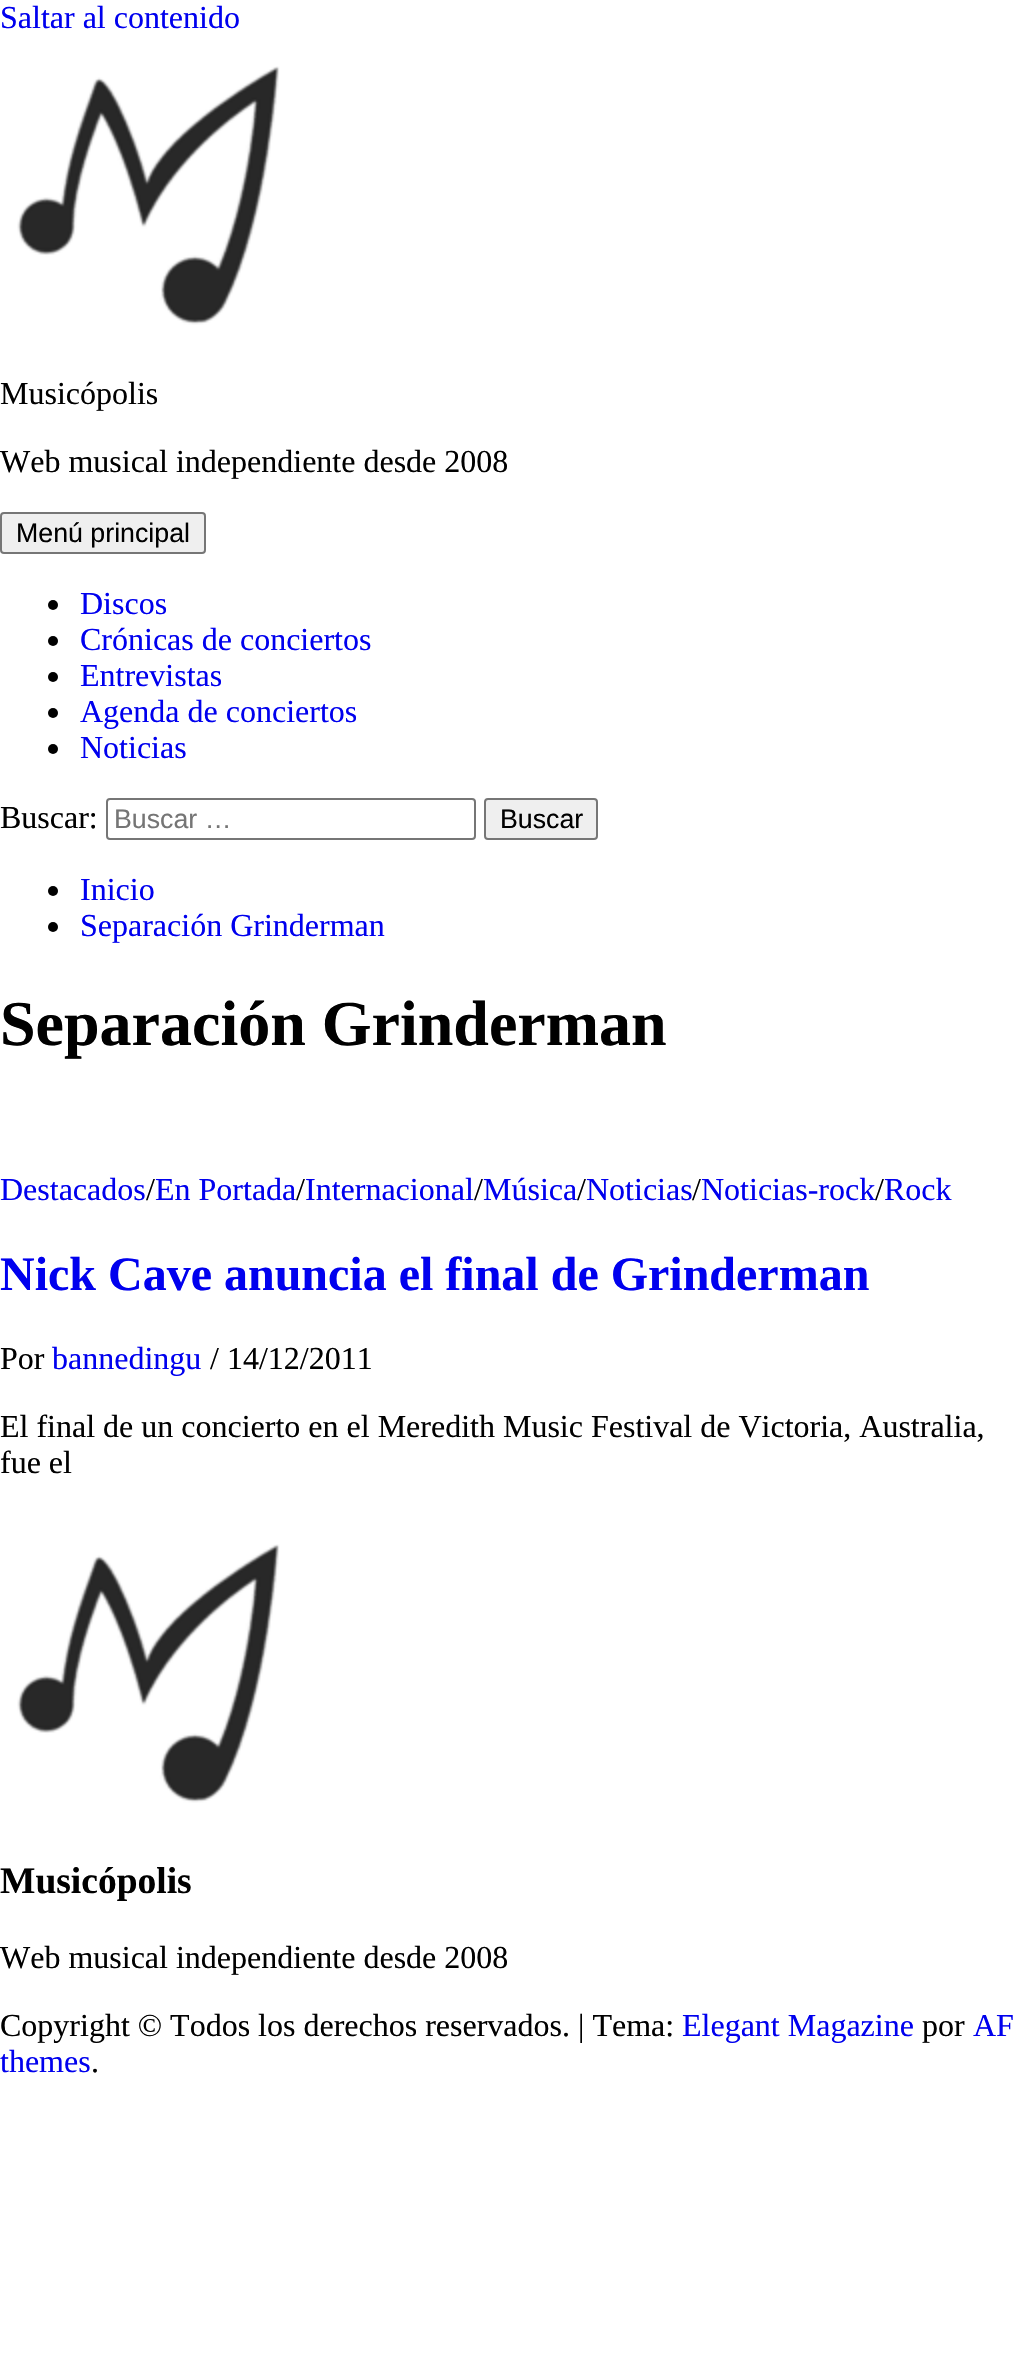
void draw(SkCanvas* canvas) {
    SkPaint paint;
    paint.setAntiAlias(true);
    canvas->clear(0xFFFFFFFF);
    SkFont font1(fontMgr->matchFamilyStyle("Liberation Serif", SkFontStyle::Normal()), 32);
    font1.setSubpixel(true);
    paint.setColor(0xFF0000EE);
    canvas->drawString("Saltar al contenido", 0, 28, font1, paint);
    canvas->drawImageRect(SkImages::DeferredFromEncodedData(SkData::MakeFromFileName("img1.png")), SkRect::MakeXYWH(17, 66, 263, 259), SkSamplingOptions());
    paint.setColor(0xFF000000);
    canvas->drawString("Musicópolis", 0, 404, font1, paint);
    canvas->drawString("Web musical independiente desde 2008", 0, 472, font1, paint);
    paint.setColor(0xFFEFEFEF);
    canvas->drawRoundRect(SkRect::MakeXYWH(1, 513, 204, 40), 3, 3, paint);
    paint.setStyle(SkPaint::kStroke_Style);
    paint.setStrokeWidth(2);
    paint.setColor(0xFF767676);
    canvas->drawRoundRect(SkRect::MakeXYWH(1, 513, 204, 40), 3, 3, paint);
    SkFont font2(fontMgr->matchFamilyStyle("Liberation Sans", SkFontStyle::Normal()), 26.75f);
    font2.setSubpixel(true);
    paint.setStyle(SkPaint::kFill_Style);
    paint.setColor(0xFF000000);
    canvas->drawString("Menú principal", 16, 542, font2, paint);
    canvas->drawCircle(53, 605, 5, paint);
    paint.setColor(0xFF0000EE);
    canvas->drawString("Discos", 80, 614, font1, paint);
    paint.setColor(0xFF000000);
    canvas->drawCircle(53, 641, 5, paint);
    paint.setColor(0xFF0000EE);
    canvas->drawString("Crónicas de conciertos", 80, 650, font1, paint);
    paint.setColor(0xFF000000);
    canvas->drawCircle(53, 677, 5, paint);
    paint.setColor(0xFF0000EE);
    canvas->drawString("Entrevistas", 80, 686, font1, paint);
    paint.setColor(0xFF000000);
    canvas->drawCircle(53, 713, 5, paint);
    paint.setColor(0xFF0000EE);
    canvas->drawString("Agenda de conciertos", 80, 722, font1, paint);
    paint.setColor(0xFF000000);
    canvas->drawCircle(53, 749, 5, paint);
    paint.setColor(0xFF0000EE);
    canvas->drawString("Noticias", 80, 758, font1, paint);
    paint.setColor(0xFF000000);
    canvas->drawString("Buscar:", 0, 828, font1, paint);
    paint.setStyle(SkPaint::kStroke_Style);
    paint.setColor(0xFF767676);
    canvas->drawRoundRect(SkRect::MakeXYWH(107, 799, 368, 40), 3, 3, paint);
    paint.setStyle(SkPaint::kFill_Style);
    paint.setColor(0xFF757575);
    canvas->drawString("Buscar …", 114, 828, font2, paint);
    paint.setColor(0xFFEFEFEF);
    canvas->drawRoundRect(SkRect::MakeXYWH(485, 799, 112, 40), 3, 3, paint);
    paint.setStyle(SkPaint::kStroke_Style);
    paint.setColor(0xFF767676);
    canvas->drawRoundRect(SkRect::MakeXYWH(485, 799, 112, 40), 3, 3, paint);
    paint.setStyle(SkPaint::kFill_Style);
    paint.setColor(0xFF000000);
    canvas->drawString("Buscar", 500, 828, font2, paint);
    canvas->drawCircle(53, 891, 5, paint);
    paint.setColor(0xFF0000EE);
    canvas->drawString("Inicio", 80, 900, font1, paint);
    paint.setColor(0xFF000000);
    canvas->drawCircle(53, 927, 5, paint);
    paint.setColor(0xFF0000EE);
    canvas->drawString("Separación Grinderman", 80, 936, font1, paint);
    SkFont font3(fontMgr->matchFamilyStyle("Liberation Serif", SkFontStyle::Bold()), 64);
    font3.setSubpixel(true);
    paint.setColor(0xFF000000);
    canvas->drawString("Separación Grinderman", 0, 1045, font3, paint);
    paint.setColor(0xFF0000EE);
    canvas->drawString("Destacados", 0, 1200, font1, paint);
    paint.setColor(0xFF000000);
    canvas->drawString("/", 146, 1200, font1, paint);
    paint.setColor(0xFF0000EE);
    canvas->drawString("En Portada", 155, 1200, font1, paint);
    paint.setColor(0xFF000000);
    canvas->drawString("/", 296, 1200, font1, paint);
    paint.setColor(0xFF0000EE);
    canvas->drawString("Internacional", 305, 1200, font1, paint);
    paint.setColor(0xFF000000);
    canvas->drawString("/", 474, 1200, font1, paint);
    paint.setColor(0xFF0000EE);
    canvas->drawString("Música", 483, 1200, font1, paint);
    paint.setColor(0xFF000000);
    canvas->drawString("/", 577, 1200, font1, paint);
    paint.setColor(0xFF0000EE);
    canvas->drawString("Noticias", 586, 1200, font1, paint);
    paint.setColor(0xFF000000);
    canvas->drawString("/", 692, 1200, font1, paint);
    paint.setColor(0xFF0000EE);
    canvas->drawString("Noticias-rock", 701, 1200, font1, paint);
    paint.setColor(0xFF000000);
    canvas->drawString("/", 875, 1200, font1, paint);
    paint.setColor(0xFF0000EE);
    canvas->drawString("Rock", 884, 1200, font1, paint);
    SkFont font4(fontMgr->matchFamilyStyle("Liberation Serif", SkFontStyle::Bold()), 48);
    font4.setSubpixel(true);
    canvas->drawString("Nick Cave anuncia el final de Grinderman", 0, 1290, font4, paint);
    paint.setColor(0xFF000000);
    canvas->drawString("Por", 0, 1369, font1, paint);
    paint.setColor(0xFF0000EE);
    canvas->drawString("bannedingu", 52, 1369, font1, paint);
    paint.setColor(0xFF000000);
    canvas->drawString("/ 14/12/2011", 210, 1369, font1, paint);
    canvas->drawString("El final de un concierto en el Meredith Music Festival de Victoria, Australia,", 0, 1437, font1, paint);
    canvas->drawString("fue el", 0, 1473, font1, paint);
    canvas->drawImageRect(SkImages::DeferredFromEncodedData(SkData::MakeFromFileName("img1.png")), SkRect::MakeXYWH(17, 1544, 263, 259), SkSamplingOptions());
    SkFont font5(fontMgr->matchFamilyStyle("Liberation Serif", SkFontStyle::Bold()), 37.5f);
    font5.setSubpixel(true);
    canvas->drawString("Musicópolis", 0, 1893, font5, paint);
    canvas->drawString("Web musical independiente desde 2008", 0, 1968, font1, paint);
    canvas->drawString("Copyright © Todos los derechos reservados. | Tema:", 0, 2036, font1, paint);
    paint.setColor(0xFF0000EE);
    canvas->drawString("Elegant Magazine", 682, 2036, font1, paint);
    paint.setColor(0xFF000000);
    canvas->drawString("por", 922, 2036, font1, paint);
    paint.setColor(0xFF0000EE);
    canvas->drawString("AF", 973, 2036, font1, paint);
    canvas->drawString("themes", 0, 2072, font1, paint);
    paint.setColor(0xFF000000);
    canvas->drawString(".", 91, 2072, font1, paint);
}
